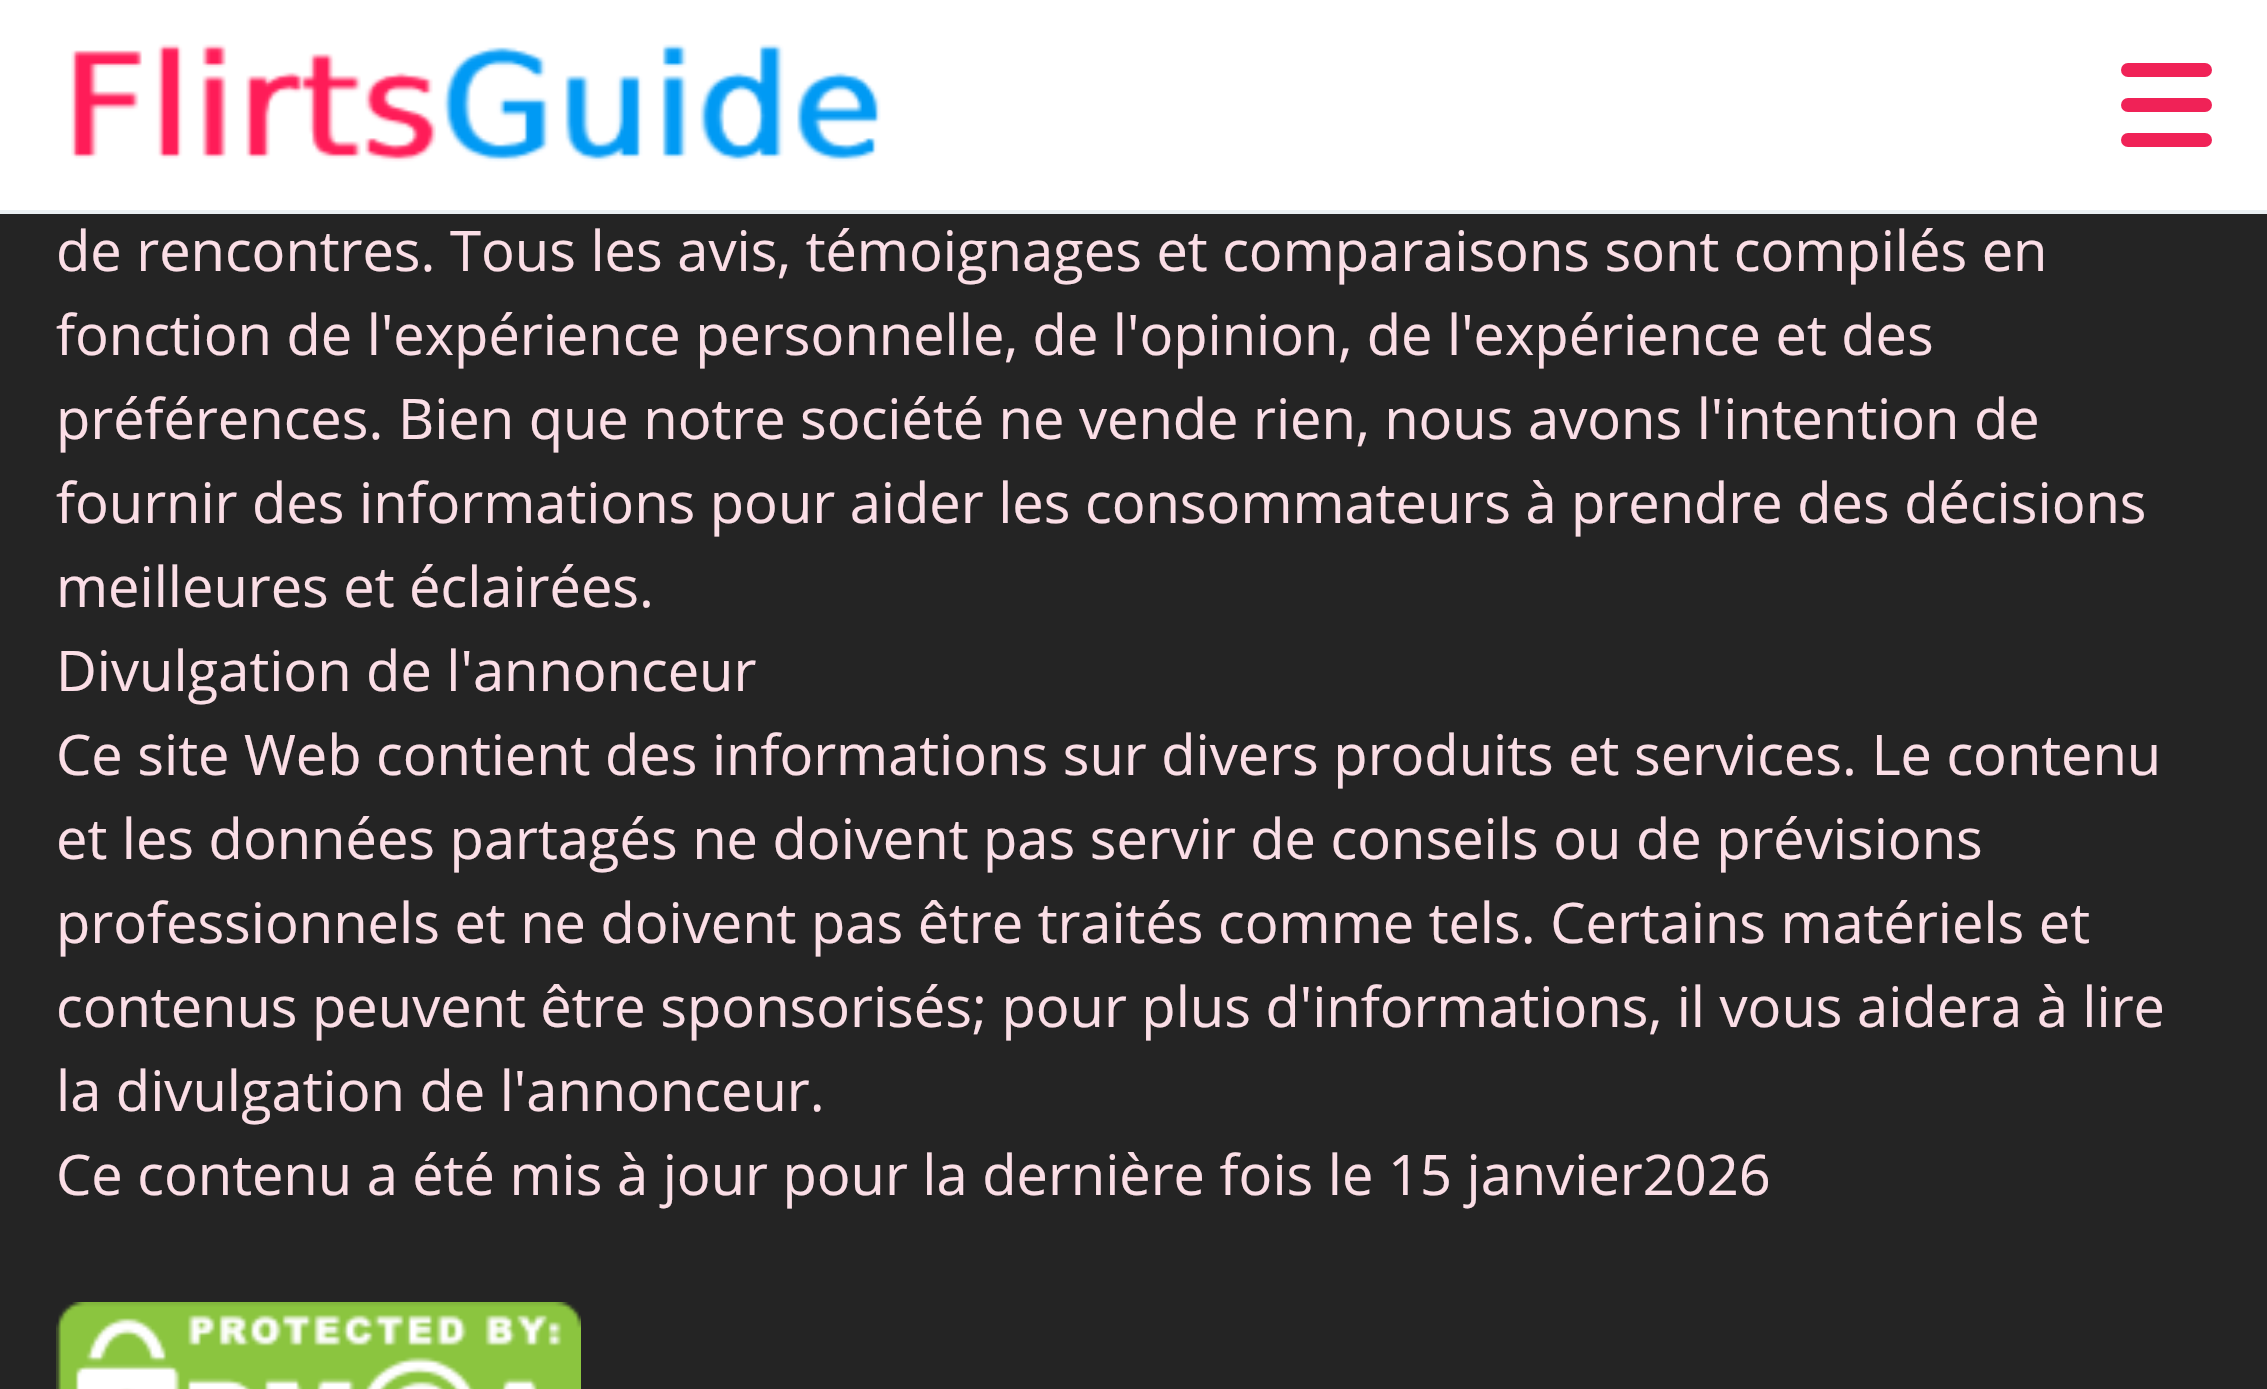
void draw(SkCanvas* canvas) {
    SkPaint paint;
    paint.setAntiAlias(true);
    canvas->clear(0xFF242424);
    paint.setColor(0xFFFFFFFF);
    canvas->drawRect(SkRect::MakeXYWH(0, 0, 2267, 210), paint);
    paint.setColor(0xFFEAF0F3);
    canvas->drawRect(SkRect::MakeXYWH(0, 210, 2267, 4), paint);
    canvas->drawImageRect(SkImages::DeferredFromEncodedData(SkData::MakeFromFileName("img1.png")), SkRect::MakeXYWH(71, 44, 810, 118), SkSamplingOptions());
    paint.setColor(0xFFF02257);
    canvas->drawRoundRect(SkRect::MakeXYWH(2121, 63, 91, 14), 7, 7, paint);
    canvas->drawRoundRect(SkRect::MakeXYWH(2121, 98, 91, 14), 7, 7, paint);
    canvas->drawRoundRect(SkRect::MakeXYWH(2121, 133, 91, 14), 7, 7, paint);
    SkFont font1(fontMgr->matchFamilyStyle("Open Sans", SkFontStyle::Normal()), 56);
    font1.setSubpixel(true);
    paint.setColor(0xFFFBDEE6);
    canvas->drawString("de rencontres. Tous les avis, témoignages et comparaisons sont compilés en", 56, 271, font1, paint);
    canvas->drawString("fonction de l'expérience personnelle, de l'opinion, de l'expérience et des", 56, 355, font1, paint);
    canvas->drawString("préférences. Bien que notre société ne vende rien, nous avons l'intention de", 56, 439, font1, paint);
    canvas->drawString("fournir des informations pour aider les consommateurs à prendre des décisions", 56, 523, font1, paint);
    canvas->drawString("meilleures et éclairées.", 56, 607, font1, paint);
    canvas->drawString("Divulgation de l'annonceur", 56, 691, font1, paint);
    canvas->drawString("Ce site Web contient des informations sur divers produits et services. Le contenu", 56, 775, font1, paint);
    canvas->drawString("et les données partagés ne doivent pas servir de conseils ou de prévisions", 56, 859, font1, paint);
    canvas->drawString("professionnels et ne doivent pas être traités comme tels. Certains matériels et", 56, 943, font1, paint);
    canvas->drawString("contenus peuvent être sponsorisés; pour plus d'informations, il vous aidera à lire", 56, 1027, font1, paint);
    canvas->drawString("la divulgation de l'annonceur.", 56, 1111, font1, paint);
    canvas->drawString("Ce contenu a été mis à jour pour la dernière fois le 15 janvier2026", 56, 1195, font1, paint);
    canvas->drawImageRect(SkImages::DeferredFromEncodedData(SkData::MakeFromFileName("img2.png")), SkRect::MakeXYWH(56, 1302, 525, 87), SkSamplingOptions());
}
